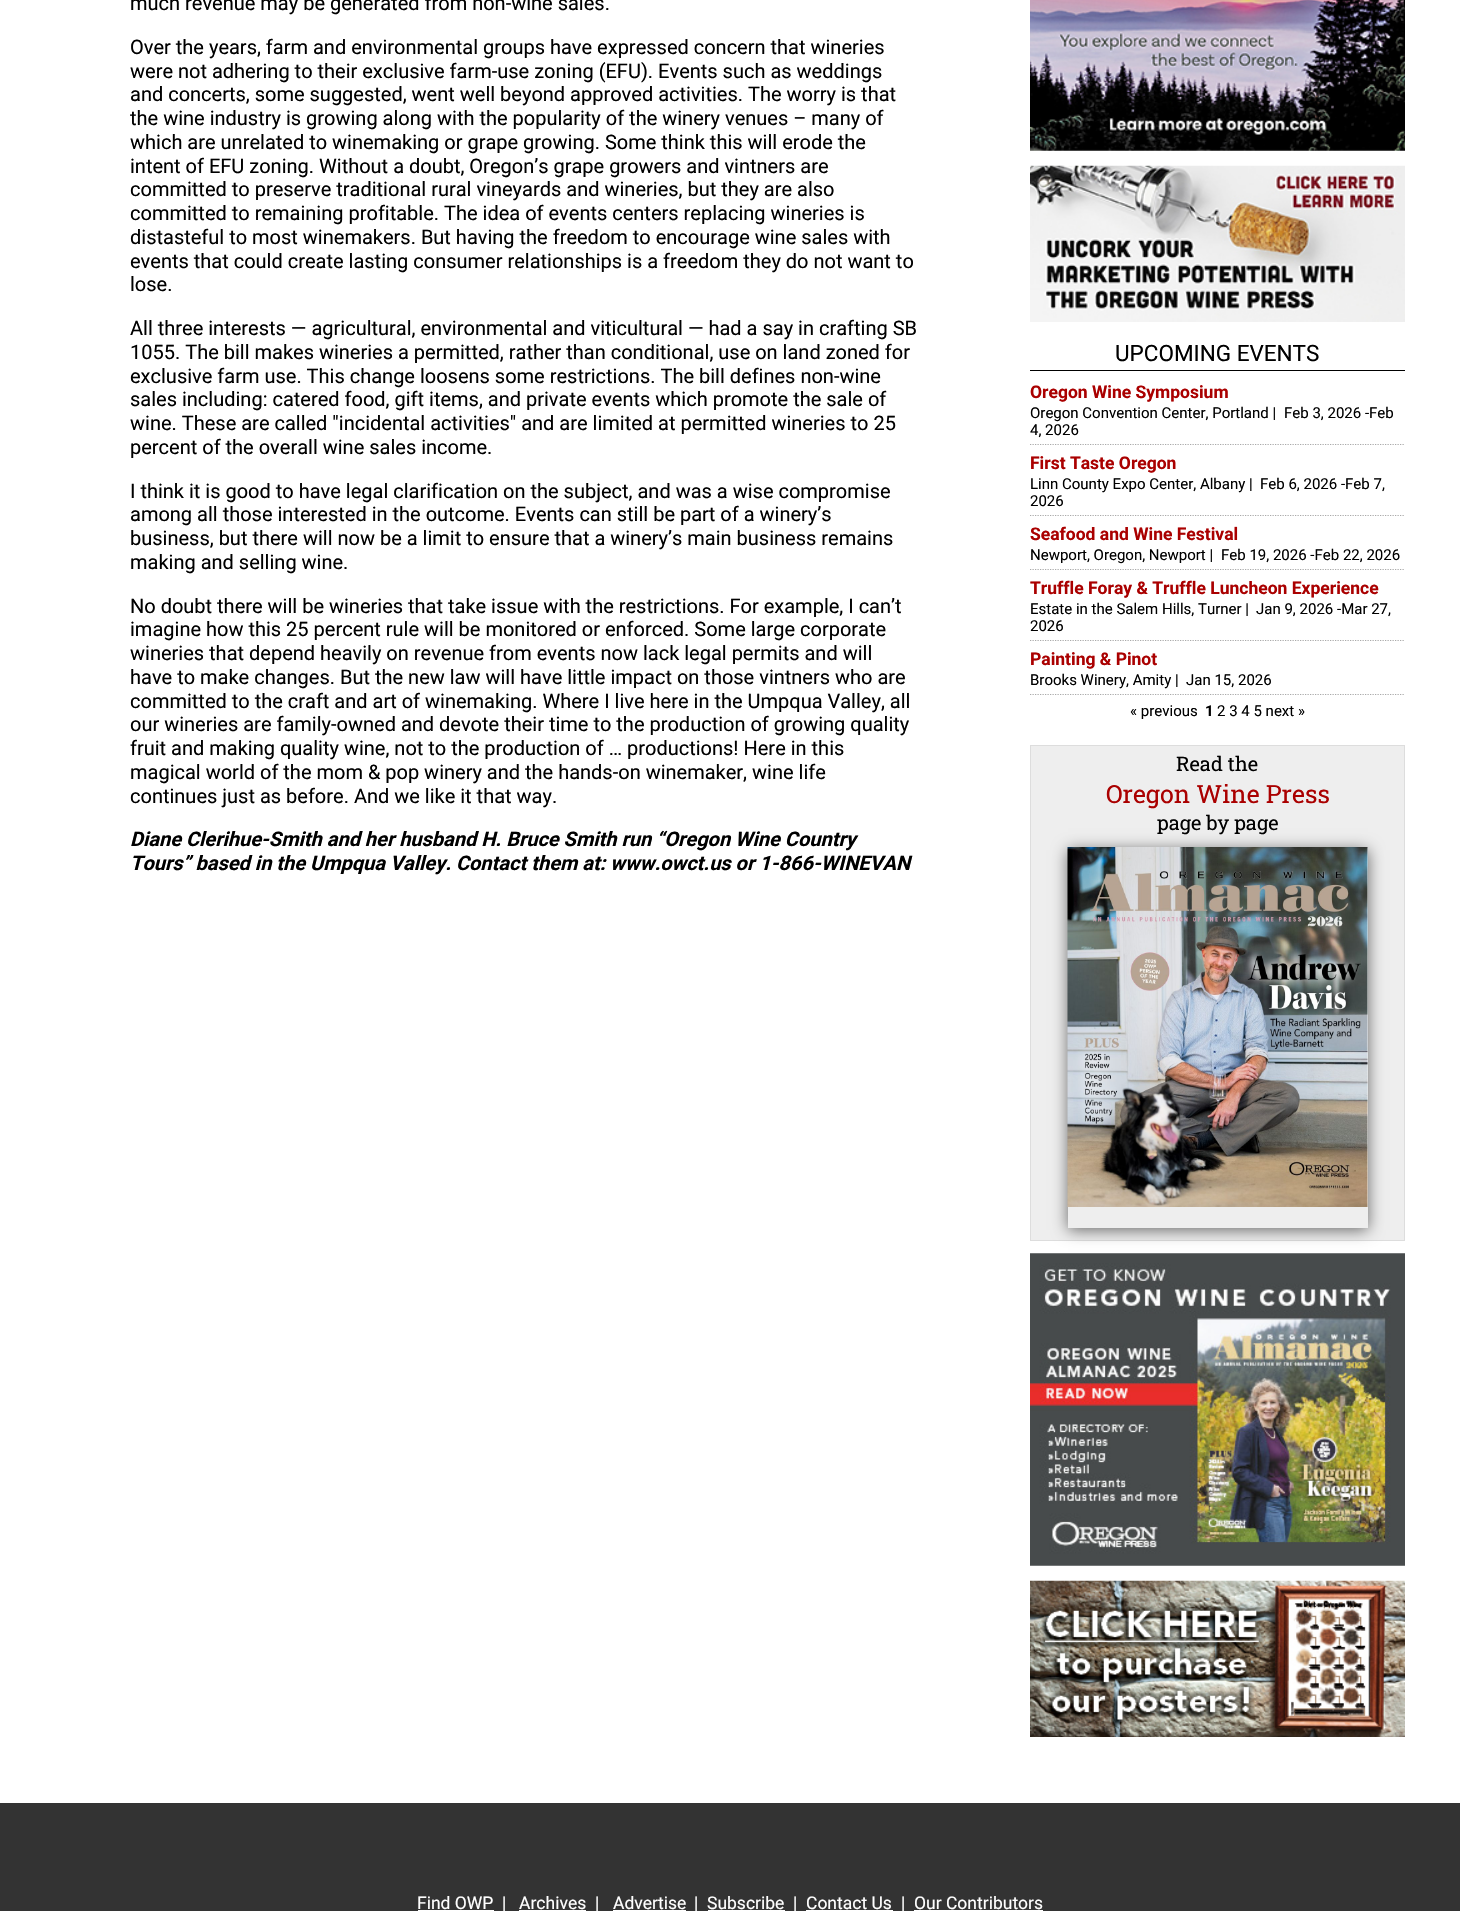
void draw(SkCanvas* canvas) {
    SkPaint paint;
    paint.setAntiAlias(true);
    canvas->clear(0xFFFFFFFF);
    SkFont font1(fontMgr->matchFamilyStyle("Roboto", SkFontStyle::Normal()), 20);
    font1.setSubpixel(true);
    paint.setColor(0xFF000000);
    canvas->drawString("much revenue may be generated from non-wine sales.", 130, 10, font1, paint);
    canvas->drawString("Over the years, farm and environmental groups have expressed concern that wineries", 130, 54, font1, paint);
    canvas->drawString("were not adhering to their exclusive farm-use zoning (EFU). Events such as weddings", 130, 78, font1, paint);
    canvas->drawString("and concerts, some suggested, went well beyond approved activities. The worry is that", 130, 101, font1, paint);
    canvas->drawString("the wine industry is growing along with the popularity of the winery venues – many of", 130, 125, font1, paint);
    canvas->drawString("which are unrelated to winemaking or grape growing. Some think this will erode the", 130, 149, font1, paint);
    canvas->drawString("intent of EFU zoning. Without a doubt, Oregon’s grape growers and vintners are", 130, 173, font1, paint);
    canvas->drawString("committed to preserve traditional rural vineyards and wineries, but they are also", 130, 196, font1, paint);
    canvas->drawString("committed to remaining profitable. The idea of events centers replacing wineries is", 130, 220, font1, paint);
    canvas->drawString("distasteful to most winemakers. But having the freedom to encourage wine sales with", 130, 244, font1, paint);
    canvas->drawString("events that could create lasting consumer relationships is a freedom they do not want to", 130, 268, font1, paint);
    canvas->drawString("lose.", 130, 291, font1, paint);
    canvas->drawString("All three interests — agricultural, environmental and viticultural — had a say in crafting SB", 130, 335, font1, paint);
    canvas->drawString("1055. The bill makes wineries a permitted, rather than conditional, use on land zoned for", 130, 359, font1, paint);
    canvas->drawString("exclusive farm use. This change loosens some restrictions. The bill defines non-wine", 130, 383, font1, paint);
    canvas->drawString("sales including: catered food, gift items, and private events which promote the sale of", 130, 406, font1, paint);
    canvas->drawString("wine. These are called \"incidental activities\" and are limited at permitted wineries to 25", 130, 430, font1, paint);
    canvas->drawString("percent of the overall wine sales income.", 130, 454, font1, paint);
    canvas->drawString("I think it is good to have legal clarification on the subject, and was a wise compromise", 130, 498, font1, paint);
    canvas->drawString("among all those interested in the outcome. Events can still be part of a winery’s", 130, 521, font1, paint);
    canvas->drawString("business, but there will now be a limit to ensure that a winery’s main business remains", 130, 545, font1, paint);
    canvas->drawString("making and selling wine.", 130, 569, font1, paint);
    canvas->drawString("No doubt there will be wineries that take issue with the restrictions. For example, I can’t", 130, 613, font1, paint);
    canvas->drawString("imagine how this 25 percent rule will be monitored or enforced. Some large corporate", 130, 636, font1, paint);
    canvas->drawString("wineries that depend heavily on revenue from events now lack legal permits and will", 130, 660, font1, paint);
    canvas->drawString("have to make changes. But the new law will have little impact on those vintners who are", 130, 684, font1, paint);
    canvas->drawString("committed to the craft and art of winemaking. Where I live here in the Umpqua Valley, all", 130, 708, font1, paint);
    canvas->drawString("our wineries are family-owned and devote their time to the production of growing quality", 130, 731, font1, paint);
    canvas->drawString("fruit and making quality wine, not to the production of … productions! Here in this", 130, 755, font1, paint);
    canvas->drawString("magical world of the mom & pop winery and the hands-on winemaker, wine life", 130, 779, font1, paint);
    canvas->drawString("continues just as before. And we like it that way.", 130, 803, font1, paint);
    SkFont font2(fontMgr->matchFamilyStyle("Roboto", SkFontStyle::BoldItalic()), 20);
    font2.setSubpixel(true);
    canvas->drawString("Diane Clerihue-Smith and her husband H. Bruce Smith run “Oregon Wine Country", 130, 846, font2, paint);
    canvas->drawString("Tours” based in the Umpqua Valley. Contact them at: www.owct.us or 1-866-WINEVAN", 130, 870, font2, paint);
    canvas->drawImageRect(SkImages::DeferredFromEncodedData(SkData::MakeFromFileName("img1.png")), SkRect::MakeXYWH(1030, 0, 375, 151), SkSamplingOptions());
    canvas->drawImageRect(SkImages::DeferredFromEncodedData(SkData::MakeFromFileName("img2.png")), SkRect::MakeXYWH(1030, 165, 375, 157), SkSamplingOptions());
    canvas->drawRect(SkRect::MakeXYWH(1030, 370, 375, 1), paint);
    SkFont font3(fontMgr->matchFamilyStyle("Roboto", SkFontStyle::Normal()), 22.5f);
    font3.setSubpixel(true);
    canvas->drawString("UPCOMING EVENTS", 1115, 361, font3, paint);
    paint.setStyle(SkPaint::kStroke_Style);
    paint.setStrokeWidth(1.2f);
    paint.setColor(0xFFA9A9A9);
    paint.setPathEffect(SkDashPathEffect::Make({{1.25f, 1.25f}}, 0));
    canvas->drawPath(SkPathBuilder().moveTo(1030, 444.5f).lineTo(1405, 444.5f).detach(), paint);
    paint.setPathEffect(nullptr);
    SkFont font4(fontMgr->matchFamilyStyle("Roboto", SkFontStyle::Bold()), 17.5f);
    font4.setSubpixel(true);
    paint.setStyle(SkPaint::kFill_Style);
    paint.setColor(0xFFAA0000);
    canvas->drawString("Oregon Wine Symposium", 1030, 398, font4, paint);
    SkFont font5(fontMgr->matchFamilyStyle("Roboto", SkFontStyle::Normal()), 15);
    font5.setSubpixel(true);
    paint.setColor(0xFF000000);
    canvas->drawString("Oregon Convention Center, Portland |", 1030, 418, font5, paint);
    canvas->drawString("Feb 3, 2026 -Feb", 1284, 418, font5, paint);
    canvas->drawString("4, 2026", 1030, 435, font5, paint);
    paint.setStyle(SkPaint::kStroke_Style);
    paint.setColor(0xFFA9A9A9);
    paint.setPathEffect(SkDashPathEffect::Make({{1.25f, 1.25f}}, 0));
    canvas->drawPath(SkPathBuilder().moveTo(1030, 515.5f).lineTo(1405, 515.5f).detach(), paint);
    paint.setPathEffect(nullptr);
    paint.setStyle(SkPaint::kFill_Style);
    paint.setColor(0xFFAA0000);
    canvas->drawString("First Taste Oregon", 1030, 469, font4, paint);
    paint.setColor(0xFF000000);
    canvas->drawString("Linn County Expo Center, Albany |", 1030, 489, font5, paint);
    canvas->drawString("Feb 6, 2026 -Feb 7,", 1260, 489, font5, paint);
    canvas->drawString("2026", 1030, 506, font5, paint);
    paint.setStyle(SkPaint::kStroke_Style);
    paint.setColor(0xFFA9A9A9);
    paint.setPathEffect(SkDashPathEffect::Make({{1.25f, 1.25f}}, 0));
    canvas->drawPath(SkPathBuilder().moveTo(1030, 569.5f).lineTo(1405, 569.5f).detach(), paint);
    paint.setPathEffect(nullptr);
    paint.setStyle(SkPaint::kFill_Style);
    paint.setColor(0xFFAA0000);
    canvas->drawString("Seafood and Wine Festival", 1030, 540, font4, paint);
    paint.setColor(0xFF000000);
    canvas->drawString("Newport, Oregon, Newport |", 1030, 560, font5, paint);
    canvas->drawString("Feb 19, 2026 -Feb 22, 2026", 1221, 560, font5, paint);
    paint.setStyle(SkPaint::kStroke_Style);
    paint.setColor(0xFFA9A9A9);
    paint.setPathEffect(SkDashPathEffect::Make({{1.25f, 1.25f}}, 0));
    canvas->drawPath(SkPathBuilder().moveTo(1030, 640.5f).lineTo(1405, 640.5f).detach(), paint);
    paint.setPathEffect(nullptr);
    paint.setStyle(SkPaint::kFill_Style);
    paint.setColor(0xFFAA0000);
    canvas->drawString("Truffle Foray & Truffle Luncheon Experience", 1030, 594, font4, paint);
    paint.setColor(0xFF000000);
    canvas->drawString("Estate in the Salem Hills, Turner |", 1030, 614, font5, paint);
    canvas->drawString("Jan 9, 2026 -Mar 27,", 1256, 614, font5, paint);
    canvas->drawString("2026", 1030, 631, font5, paint);
    paint.setStyle(SkPaint::kStroke_Style);
    paint.setColor(0xFFA9A9A9);
    paint.setPathEffect(SkDashPathEffect::Make({{1.25f, 1.25f}}, 0));
    canvas->drawPath(SkPathBuilder().moveTo(1030, 694.5f).lineTo(1405, 694.5f).detach(), paint);
    paint.setPathEffect(nullptr);
    paint.setStyle(SkPaint::kFill_Style);
    paint.setColor(0xFFAA0000);
    canvas->drawString("Painting & Pinot", 1030, 665, font4, paint);
    paint.setColor(0xFF000000);
    canvas->drawString("Brooks Winery, Amity |", 1030, 685, font5, paint);
    canvas->drawString("Jan 15, 2026", 1186, 685, font5, paint);
    canvas->drawString("« previous", 1130, 716, font5, paint);
    SkFont font6(fontMgr->matchFamilyStyle("Roboto", SkFontStyle::Bold()), 15);
    font6.setSubpixel(true);
    canvas->drawString("1", 1205, 716, font6, paint);
    canvas->drawString("2 3 4 5 next »", 1217, 716, font5, paint);
    paint.setColor(0xFFEEEEEE);
    canvas->drawRect(SkRect::MakeXYWH(1030.5f, 745.5f, 374, 495), paint);
    paint.setStyle(SkPaint::kStroke_Style);
    paint.setStrokeWidth(1);
    paint.setColor(0xFFDDDDDD);
    canvas->drawRect(SkRect::MakeXYWH(1030.5f, 745.5f, 374, 495), paint);
    SkFont font7(fontMgr->matchFamilyStyle("Roboto Slab", SkFontStyle::Normal()), 20);
    font7.setSubpixel(true);
    paint.setStyle(SkPaint::kFill_Style);
    paint.setColor(0xFF000000);
    canvas->drawString("Read the", 1176, 771, font7, paint);
    SkFont font8(fontMgr->matchFamilyStyle("Roboto Slab", SkFontStyle::Normal()), 25);
    font8.setSubpixel(true);
    paint.setColor(0xFFAA0000);
    canvas->drawString("Oregon Wine Press", 1106, 803, font8, paint);
    paint.setColor(0xFF000000);
    canvas->drawString("page by page", 1157, 830, font7, paint);
    canvas->drawImageRect(SkImages::DeferredFromEncodedData(SkData::MakeFromFileName("img4.png")), SkRect::MakeXYWH(1030, 1253, 375, 313), SkSamplingOptions());
    canvas->save();
    canvas->clipPath(SkPathBuilder(SkPathFillType::kEvenOdd).moveTo(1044, 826).lineTo(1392, 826).lineTo(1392, 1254).lineTo(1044, 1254).close().moveTo(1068, 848).lineTo(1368, 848).lineTo(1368, 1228).lineTo(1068, 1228).close().detach(), true);
    paint.setColor(0xFF666666);
    paint.setMaskFilter(SkMaskFilter::MakeBlur(kNormal_SkBlurStyle, 7.5f));
    canvas->drawRect(SkRect::MakeXYWH(1068, 850, 300, 380), paint);
    paint.setMaskFilter(nullptr);
    canvas->restore();
    canvas->drawImageRect(SkImages::DeferredFromEncodedData(SkData::MakeFromFileName("img3.png")), SkRect::MakeXYWH(1067, 847, 301, 360), SkSamplingOptions());
    canvas->drawImageRect(SkImages::DeferredFromEncodedData(SkData::MakeFromFileName("img5.png")), SkRect::MakeXYWH(1030, 1580, 375, 157), SkSamplingOptions());
    paint.setColor(0xFF333333);
    canvas->drawRect(SkRect::MakeXYWH(0, 1803, 1460, 108), paint);
    SkFont font9(fontMgr->matchFamilyStyle("Roboto", SkFontStyle::Normal()), 17.5f);
    font9.setSubpixel(true);
    paint.setColor(0xFFFFFFFF);
    canvas->drawString("Find OWP", 417, 1909, font9, paint);
    canvas->drawRect(SkRect::MakeXYWH(418, 1910, 76, 1), paint);
    canvas->drawString("|", 502, 1909, font9, paint);
    canvas->drawString("Archives", 519, 1909, font9, paint);
    canvas->drawRect(SkRect::MakeXYWH(519, 1910, 67, 1), paint);
    canvas->drawString("|", 595, 1909, font9, paint);
    canvas->drawString("Advertise", 613, 1909, font9, paint);
    canvas->drawRect(SkRect::MakeXYWH(613, 1910, 73, 1), paint);
    canvas->drawString("|", 694, 1909, font9, paint);
    canvas->drawString("Subscribe", 707, 1909, font9, paint);
    canvas->drawRect(SkRect::MakeXYWH(708, 1910, 77, 1), paint);
    canvas->drawString("|", 793, 1909, font9, paint);
    canvas->drawString("Contact Us", 806, 1909, font9, paint);
    canvas->drawRect(SkRect::MakeXYWH(806, 1910, 87, 1), paint);
    canvas->drawString("|", 901, 1909, font9, paint);
    canvas->drawString("Our Contributors", 914, 1909, font9, paint);
    canvas->drawRect(SkRect::MakeXYWH(914, 1910, 129, 1), paint);
}
